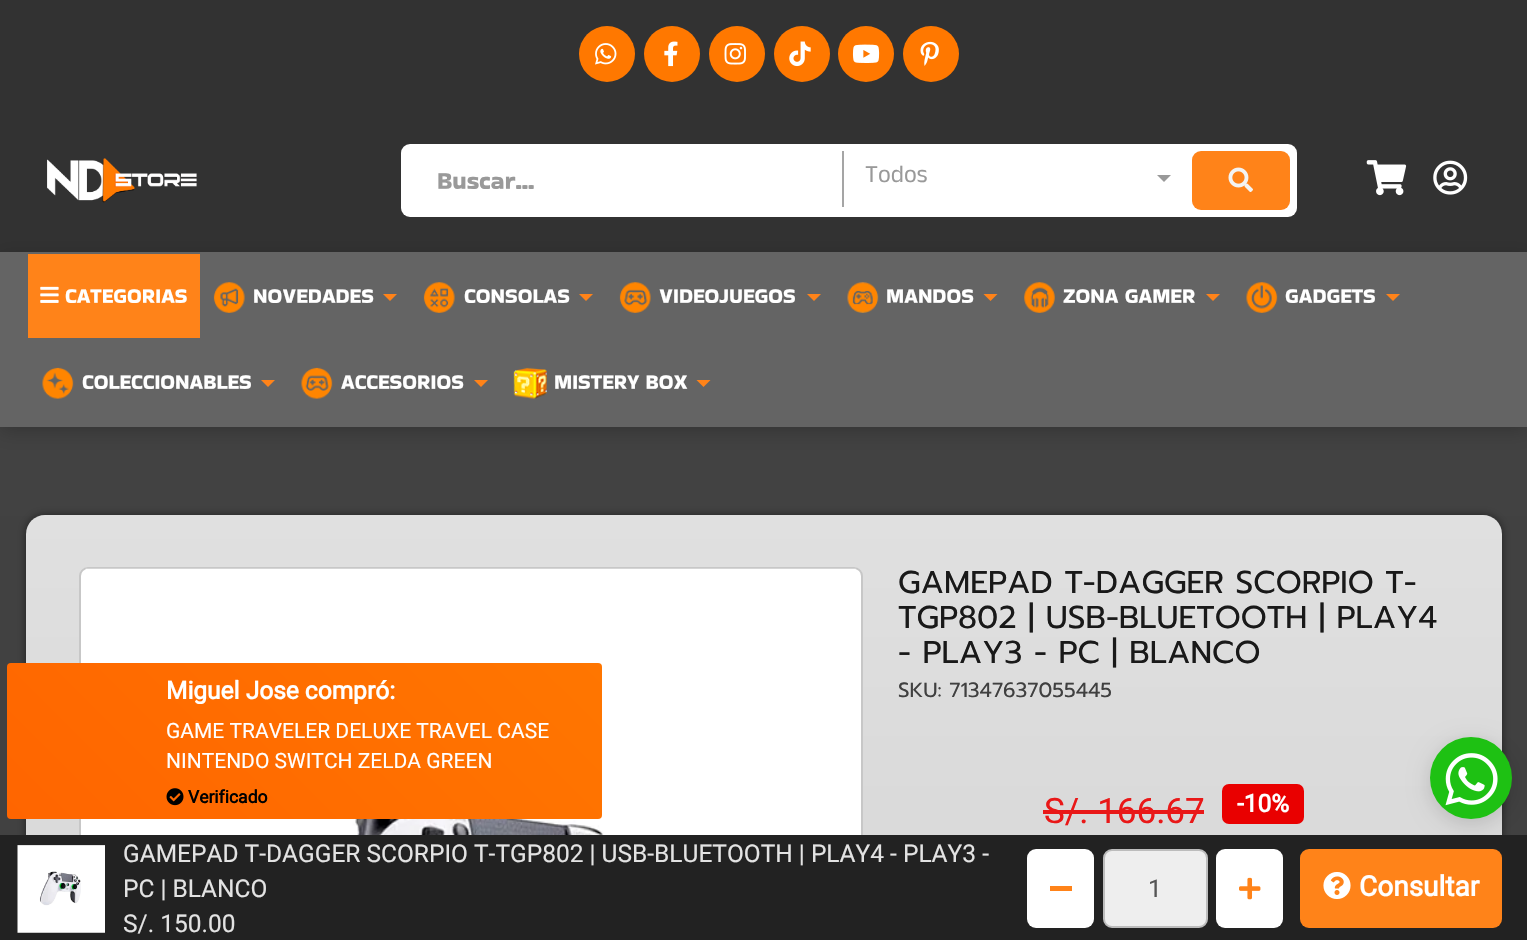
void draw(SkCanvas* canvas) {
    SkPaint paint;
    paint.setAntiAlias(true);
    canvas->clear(0xFFFFFFFF);
    {
        const SkColor colors[] = {0xFF434343, 0xFF323232};
        const float stops[] = {0, 1};
        const SkPoint ends[] = {{764, 0}, {764, 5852}};
        paint.setShader(SkGradientShader::MakeLinear(ends, colors, stops, 2, SkTileMode::kClamp));
        paint.setAlpha(255);
    }
    canvas->drawRect(SkRect::MakeXYWH(0, 427, 1527, 408), paint);
    paint.setShader(nullptr);
    paint.setColor(0xFF323232);
    canvas->drawRect(SkRect::MakeXYWH(0, 0, 1527, 252), paint);
    paint.setColor(0xFFFF7800);
    canvas->drawCircle(607, 54, 28, paint);
    canvas->drawImageRect(SkImages::DeferredFromEncodedData(SkData::MakeFromFileName("img1.png")), SkRect::MakeXYWH(595, 43, 22, 22), SkSamplingOptions());
    canvas->drawCircle(672, 54, 28, paint);
    canvas->drawImageRect(SkImages::DeferredFromEncodedData(SkData::MakeFromFileName("img2.png")), SkRect::MakeXYWH(664, 41, 14, 26), SkSamplingOptions());
    canvas->drawCircle(737, 54, 28, paint);
    canvas->drawImageRect(SkImages::DeferredFromEncodedData(SkData::MakeFromFileName("img3.png")), SkRect::MakeXYWH(724, 43, 22, 22), SkSamplingOptions());
    canvas->drawCircle(802, 54, 28, paint);
    canvas->drawImageRect(SkImages::DeferredFromEncodedData(SkData::MakeFromFileName("img4.png")), SkRect::MakeXYWH(789, 41, 22, 26), SkSamplingOptions());
    canvas->drawCircle(866, 54, 28, paint);
    canvas->drawImageRect(SkImages::DeferredFromEncodedData(SkData::MakeFromFileName("img5.png")), SkRect::MakeXYWH(852, 44, 28, 19), SkSamplingOptions());
    canvas->drawCircle(931, 54, 28, paint);
    canvas->drawImageRect(SkImages::DeferredFromEncodedData(SkData::MakeFromFileName("img6.png")), SkRect::MakeXYWH(920, 41, 19, 25), SkSamplingOptions());
    canvas->drawImageRect(SkImages::DeferredFromEncodedData(SkData::MakeFromFileName("img7.png")), SkRect::MakeXYWH(47, 158, 150, 45), SkSamplingOptions());
    paint.setColor(0xFFFFFFFF);
    canvas->drawRoundRect(SkRect::MakeXYWH(401, 144, 896, 73), 9, 9, paint);
    SkFont font1(fontMgr->matchFamilyStyle("Bakbak One", SkFontStyle::Normal()), 24.5f);
    font1.setSubpixel(true);
    paint.setColor(0xFF999999);
    canvas->drawString("Buscar...", 437, 189, font1, paint);
    paint.setColor(0xFFA5A5A5);
    canvas->drawRect(SkRect::MakeXYWH(842, 151, 2, 56), paint);
    SkFont font2(fontMgr->matchFamilyStyle("Anek Gurmukhi", SkFontStyle(500, SkFontStyle::kNormal_Width, SkFontStyle::kUpright_Slant)), 24.5f);
    font2.setSubpixel(true);
    paint.setColor(0xFF999999);
    canvas->drawString("Todos", 865, 182, font2, paint);
    canvas->drawPath(SkPathBuilder().moveTo(1157, 175).lineTo(1171, 175).lineTo(1164, 182).close().detach(), paint);
    paint.setColor(0xFFFF8319);
    canvas->drawRoundRect(SkRect::MakeXYWH(1192, 151, 98, 59), 9, 9, paint);
    canvas->drawImageRect(SkImages::DeferredFromEncodedData(SkData::MakeFromFileName("img8.png")), SkRect::MakeXYWH(1228, 167, 25, 25), SkSamplingOptions());
    canvas->drawImageRect(SkImages::DeferredFromEncodedData(SkData::MakeFromFileName("img9.png")), SkRect::MakeXYWH(1366, 160, 41, 36), SkSamplingOptions());
    canvas->drawImageRect(SkImages::DeferredFromEncodedData(SkData::MakeFromFileName("img10.png")), SkRect::MakeXYWH(1433, 160, 35, 35), SkSamplingOptions());
    paint.setColor(0x33000000);
    paint.setMaskFilter(SkMaskFilter::MakeBlur(kNormal_SkBlurStyle, 9));
    canvas->drawRect(SkRect::MakeXYWH(0, 257, 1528, 175), paint);
    paint.setMaskFilter(nullptr);
    paint.setColor(0xFF646464);
    canvas->drawRect(SkRect::MakeXYWH(0, 252, 1527, 175), paint);
    paint.setColor(0xFFFF8319);
    canvas->drawRect(SkRect::MakeXYWH(28, 254, 172, 84), paint);
    canvas->drawImageRect(SkImages::DeferredFromEncodedData(SkData::MakeFromFileName("img11.png")), SkRect::MakeXYWH(40, 286, 19, 17), SkSamplingOptions());
    SkFont font3(fontMgr->matchFamilyStyle("Bakbak One", SkFontStyle::Normal()), 21);
    font3.setSubpixel(true);
    paint.setColor(0xFFFFFFFF);
    canvas->drawString("CATEGORIAS", 65, 303, font3, paint);
    canvas->drawImageRect(SkImages::DeferredFromEncodedData(SkData::MakeFromFileName("img12.png")), SkRect::MakeXYWH(213, 282, 32, 31), SkSamplingOptions());
    canvas->drawString("NOVEDADES", 253, 303, font3, paint);
    paint.setColor(0xFFFF8319);
    canvas->drawPath(SkPathBuilder().moveTo(383, 294).lineTo(397, 294).lineTo(390, 301).close().detach(), paint);
    canvas->drawImageRect(SkImages::DeferredFromEncodedData(SkData::MakeFromFileName("img13.png")), SkRect::MakeXYWH(423, 282, 32, 31), SkSamplingOptions());
    paint.setColor(0xFFFFFFFF);
    canvas->drawString("CONSOLAS", 464, 303, font3, paint);
    paint.setColor(0xFFFF8319);
    canvas->drawPath(SkPathBuilder().moveTo(579, 294).lineTo(593, 294).lineTo(586, 301).close().detach(), paint);
    canvas->drawImageRect(SkImages::DeferredFromEncodedData(SkData::MakeFromFileName("img14.png")), SkRect::MakeXYWH(619, 282, 32, 31), SkSamplingOptions());
    paint.setColor(0xFFFFFFFF);
    canvas->drawString("VIDEOJUEGOS", 659, 303, font3, paint);
    paint.setColor(0xFFFF8319);
    canvas->drawPath(SkPathBuilder().moveTo(807, 294).lineTo(821, 294).lineTo(814, 301).close().detach(), paint);
    canvas->drawImageRect(SkImages::DeferredFromEncodedData(SkData::MakeFromFileName("img15.png")), SkRect::MakeXYWH(847, 282, 32, 31), SkSamplingOptions());
    paint.setColor(0xFFFFFFFF);
    canvas->drawString("MANDOS", 886, 303, font3, paint);
    paint.setColor(0xFFFF8319);
    canvas->drawPath(SkPathBuilder().moveTo(983.5f, 294).lineTo(997.5f, 294).lineTo(990.5f, 301).close().detach(), paint);
    canvas->drawImageRect(SkImages::DeferredFromEncodedData(SkData::MakeFromFileName("img16.png")), SkRect::MakeXYWH(1024, 282, 31, 31), SkSamplingOptions());
    paint.setColor(0xFFFFFFFF);
    canvas->drawString("ZONA GAMER", 1063, 303, font3, paint);
    paint.setColor(0xFFFF8319);
    canvas->drawPath(SkPathBuilder().moveTo(1206, 294).lineTo(1220, 294).lineTo(1213, 301).close().detach(), paint);
    canvas->drawImageRect(SkImages::DeferredFromEncodedData(SkData::MakeFromFileName("img17.png")), SkRect::MakeXYWH(1246, 282, 32, 31), SkSamplingOptions());
    paint.setColor(0xFFFFFFFF);
    canvas->drawString("GADGETS", 1285, 303, font3, paint);
    paint.setColor(0xFFFF8319);
    canvas->drawPath(SkPathBuilder().moveTo(1386, 294).lineTo(1400, 294).lineTo(1393, 301).close().detach(), paint);
    canvas->drawImageRect(SkImages::DeferredFromEncodedData(SkData::MakeFromFileName("img18.png")), SkRect::MakeXYWH(42, 367, 32, 32), SkSamplingOptions());
    paint.setColor(0xFFFFFFFF);
    canvas->drawString("COLECCIONABLES", 82, 389, font3, paint);
    paint.setColor(0xFFFF8319);
    canvas->drawPath(SkPathBuilder().moveTo(261, 380).lineTo(275, 380).lineTo(268, 387).close().detach(), paint);
    canvas->drawImageRect(SkImages::DeferredFromEncodedData(SkData::MakeFromFileName("img19.png")), SkRect::MakeXYWH(301, 367, 32, 32), SkSamplingOptions());
    paint.setColor(0xFFFFFFFF);
    canvas->drawString("ACCESORIOS", 341, 389, font3, paint);
    paint.setColor(0xFFFF8319);
    canvas->drawPath(SkPathBuilder().moveTo(474, 380).lineTo(488, 380).lineTo(481, 387).close().detach(), paint);
    canvas->drawImageRect(SkImages::DeferredFromEncodedData(SkData::MakeFromFileName("img20.png")), SkRect::MakeXYWH(513, 367, 34, 32), SkSamplingOptions());
    paint.setColor(0xFFFFFFFF);
    canvas->drawString("MISTERY BOX", 554, 389, font3, paint);
    paint.setColor(0xFFFF8319);
    canvas->drawPath(SkPathBuilder().moveTo(696.5f, 380).lineTo(710.5f, 380).lineTo(703.5f, 387).close().detach(), paint);
    paint.setColor(0x80000000);
    paint.setMaskFilter(SkMaskFilter::MakeBlur(kNormal_SkBlurStyle, 4.5f));
    canvas->drawRoundRect(SkRect::MakeXYWH(26, 515, 1476, 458), 19, 19, paint);
    paint.setMaskFilter(nullptr);
    {
        const SkColor colors[] = {0xFFE0E0E0, 0xFFCBCBCB};
        const float stops[] = {0, 1};
        const SkPoint ends[] = {{764, 514}, {764, 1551}};
        paint.setShader(SkGradientShader::MakeLinear(ends, colors, stops, 2, SkTileMode::kClamp));
        paint.setAlpha(255);
    }
    canvas->drawRoundRect(SkRect::MakeXYWH(26, 515, 1476, 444), 19, 19, paint);
    paint.setShader(nullptr);
    paint.setColor(0xFFFFFFFF);
    canvas->drawRoundRect(SkRect::MakeXYWH(79, 567, 784, 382), 9, 9, paint);
    paint.setStyle(SkPaint::kStroke_Style);
    paint.setStrokeWidth(2);
    paint.setColor(0x38000000);
    canvas->drawRoundRect(SkRect::MakeXYWH(80, 568, 782, 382), 8, 8, paint);
    canvas->drawImageRect(SkImages::DeferredFromEncodedData(SkData::MakeFromFileName("img22.png")), SkRect::MakeXYWH(85, 568, 771, 267), SkSamplingOptions());
    paint.setStyle(SkPaint::kFill_Style);
    {
        const SkColor colors[] = {0xFFFF6500, 0xFFFF7600};
        const float stops[] = {0, 1};
        const SkPoint ends[] = {{117, 929}, {492, 553}};
        paint.setShader(SkGradientShader::MakeLinear(ends, colors, stops, 2, SkTileMode::kClamp));
        paint.setAlpha(255);
    }
    canvas->drawRoundRect(SkRect::MakeXYWH(7, 663, 595, 156), 4, 4, paint);
    SkFont font4(fontMgr->matchFamilyStyle("Roboto", SkFontStyle::Bold()), 24.5f);
    font4.setSubpixel(true);
    paint.setShader(nullptr);
    paint.setColor(0xFFFFFFFF);
    canvas->drawString("Miguel Jose compró:", 166, 699, font4, paint);
    SkFont font5(fontMgr->matchFamilyStyle("Roboto", SkFontStyle::Normal()), 21);
    font5.setSubpixel(true);
    canvas->drawString("GAME TRAVELER DELUXE TRAVEL CASE", 166, 738, font5, paint);
    canvas->drawString("NINTENDO SWITCH ZELDA GREEN", 166, 768, font5, paint);
    canvas->drawImageRect(SkImages::DeferredFromEncodedData(SkData::MakeFromFileName("img21.png")), SkRect::MakeXYWH(166, 788, 18, 18), SkSamplingOptions());
    SkFont font6(fontMgr->matchFamilyStyle("Roboto", SkFontStyle::Bold()), 17.5f);
    font6.setSubpixel(true);
    paint.setColor(0xFF000000);
    canvas->drawString("Verificado", 188, 803, font6, paint);
    SkFont font7(fontMgr->matchFamilyStyle("Prompt", SkFontStyle::Normal()), 31.5f);
    font7.setSubpixel(true);
    paint.setColor(0xFF191919);
    canvas->drawString("GAMEPAD T-DAGGER SCORPIO T-", 898, 593, font7, paint);
    canvas->drawString("TGP802 | USB-BLUETOOTH | PLAY4", 898, 628, font7, paint);
    canvas->drawString("- PLAY3 - PC | BLANCO", 898, 663, font7, paint);
    SkFont font8(fontMgr->matchFamilyStyle("Prompt", SkFontStyle::Normal()), 20.5f);
    font8.setSubpixel(true);
    paint.setColor(0xFF404040);
    canvas->drawString("SKU: 71347637055445", 898, 697, font8, paint);
    SkFont font9(fontMgr->matchFamilyStyle("Roboto", SkFontStyle::Normal()), 35);
    font9.setSubpixel(true);
    paint.setColor(0xFFE91818);
    canvas->drawString("S/. 166.67", 1044, 823, font9, paint);
    canvas->drawRect(SkRect::MakeXYWH(1043, 810, 161, 4), paint);
    paint.setColor(0xFFE90000);
    canvas->drawRoundRect(SkRect::MakeXYWH(1222, 784, 82, 40), 7, 7, paint);
    paint.setColor(0xFFFFFFFF);
    canvas->drawString("-10%", 1237, 812, font4, paint);
    paint.setColor(0xFF222222);
    canvas->drawRect(SkRect::MakeXYWH(0, 835, 1527, 105), paint);
    paint.setColor(0xFFFF8319);
    canvas->drawRoundRect(SkRect::MakeXYWH(1300, 849, 202, 79), 9, 9, paint);
    paint.setColor(0x26000000);
    paint.setMaskFilter(SkMaskFilter::MakeBlur(kNormal_SkBlurStyle, 10.5f));
    canvas->drawRoundRect(SkRect::MakeXYWH(1430, 742, 82, 82), 41, 41, paint);
    paint.setMaskFilter(nullptr);
    paint.setColor(0xFF1EC113);
    canvas->drawCircle(1471, 778, 41, paint);
    canvas->drawImageRect(SkImages::DeferredFromEncodedData(SkData::MakeFromFileName("img23.png")), SkRect::MakeXYWH(1445, 753, 53, 53), SkSamplingOptions());
    canvas->drawImageRect(SkImages::DeferredFromEncodedData(SkData::MakeFromFileName("img24.png")), SkRect::MakeXYWH(17, 845, 88, 88), SkSamplingOptions());
    SkFont font10(fontMgr->matchFamilyStyle("Roboto", SkFontStyle::Normal()), 24.5f);
    font10.setSubpixel(true);
    paint.setColor(0xFFE3E3E3);
    canvas->drawString("GAMEPAD T-DAGGER SCORPIO T-TGP802 | USB-BLUETOOTH | PLAY4 - PLAY3 -", 123, 862, font10, paint);
    canvas->drawString("PC | BLANCO", 123, 897, font10, paint);
    canvas->drawString("S/. 150.00", 123, 932, font10, paint);
    paint.setColor(0xFFFFFFFF);
    canvas->drawRoundRect(SkRect::MakeXYWH(1027, 849, 67, 79), 9, 9, paint);
    paint.setColor(0xFFFF8319);
    canvas->drawRect(SkRect::MakeXYWH(1050, 886, 22, 5), paint);
    paint.setColor(0xFFEEEEEE);
    canvas->drawRoundRect(SkRect::MakeXYWH(1104, 850, 103, 77), 8, 8, paint);
    paint.setStyle(SkPaint::kStroke_Style);
    paint.setColor(0xFFBCBCBC);
    canvas->drawRoundRect(SkRect::MakeXYWH(1104, 850, 103, 77), 8, 8, paint);
    paint.setStyle(SkPaint::kFill_Style);
    paint.setColor(0xFF555555);
    canvas->drawString("1", 1148, 897, font10, paint);
    paint.setColor(0xFFFFFFFF);
    canvas->drawRoundRect(SkRect::MakeXYWH(1216, 849, 67, 79), 9, 9, paint);
    canvas->drawImageRect(SkImages::DeferredFromEncodedData(SkData::MakeFromFileName("img25.png")), SkRect::MakeXYWH(1239, 877, 22, 23), SkSamplingOptions());
    canvas->drawImageRect(SkImages::DeferredFromEncodedData(SkData::MakeFromFileName("img26.png")), SkRect::MakeXYWH(1323, 872, 28, 27), SkSamplingOptions());
    SkFont font11(fontMgr->matchFamilyStyle("Roboto", SkFontStyle::Bold()), 28);
    font11.setSubpixel(true);
    canvas->drawString("Consultar", 1359, 896, font11, paint);
}
